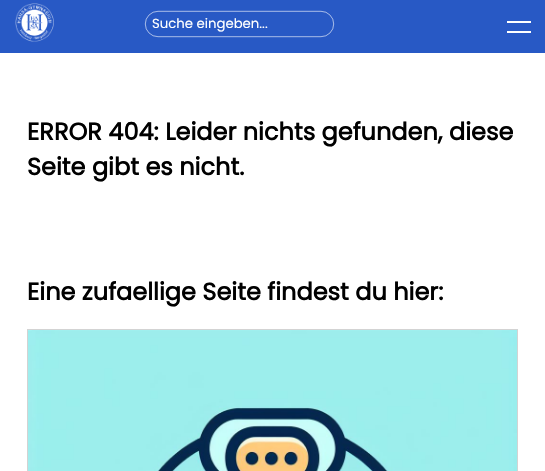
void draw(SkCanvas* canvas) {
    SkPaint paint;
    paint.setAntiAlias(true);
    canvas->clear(0xFFFFFFFF);
    paint.setColor(0xFF2859C5);
    canvas->drawRect(SkRect::MakeXYWH(0, 0, 545, 53), paint);
    canvas->drawImageRect(SkImages::DeferredFromEncodedData(SkData::MakeFromFileName("img1.png")), SkRect::MakeXYWH(15, 3, 39, 39), SkSamplingOptions());
    paint.setStyle(SkPaint::kStroke_Style);
    paint.setStrokeWidth(0.6f);
    paint.setColor(0xFFFFFFFF);
    canvas->drawRoundRect(SkRect::MakeXYWH(145.3f, 11.3f, 188.4f, 25.4f), 12.7f, 12.7f, paint);
    SkFont font1(fontMgr->matchFamilyStyle("Poppins", SkFontStyle::Normal()), 13.25f);
    font1.setSubpixel(true);
    paint.setStyle(SkPaint::kFill_Style);
    canvas->drawString("Suche eingeben...", 152, 28, font1, paint);
    canvas->drawRect(SkRect::MakeXYWH(507, 21, 24, 2), paint);
    canvas->drawRect(SkRect::MakeXYWH(507, 31, 24, 2), paint);
    SkFont font2(fontMgr->matchFamilyStyle("Poppins", SkFontStyle::Bold()), 24);
    font2.setSubpixel(true);
    paint.setColor(0xFF000000);
    canvas->drawString("ERROR 404: Leider nichts gefunden, diese", 27, 140, font2, paint);
    canvas->drawString("Seite gibt es nicht.", 27, 175, font2, paint);
    canvas->drawString("Eine zufaellige Seite findest du hier:", 27, 300, font2, paint);
    paint.setStyle(SkPaint::kStroke_Style);
    paint.setStrokeWidth(1);
    paint.setColor(0xFFD3D3D3);
    canvas->drawRect(SkRect::MakeXYWH(27.5f, 329.5f, 490, 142), paint);
    canvas->drawImageRect(SkImages::DeferredFromEncodedData(SkData::MakeFromFileName("img2.png")), SkRect::MakeXYWH(28, 330, 489, 141), SkSamplingOptions());
}
